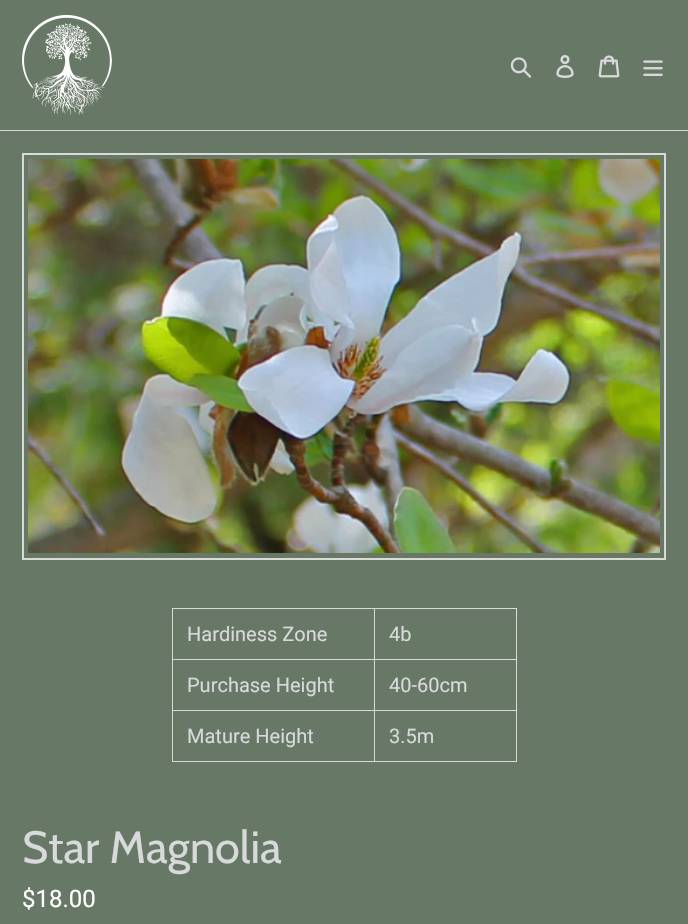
void draw(SkCanvas* canvas) {
    SkPaint paint;
    paint.setAntiAlias(true);
    canvas->clear(0xFF687866);
    paint.setColor(0xFFD7D9DA);
    canvas->drawRect(SkRect::MakeXYWH(0, 130, 688, 1), paint);
    canvas->drawImageRect(SkImages::DeferredFromEncodedData(SkData::MakeFromFileName("img1.png")), SkRect::MakeXYWH(22, 15, 90, 100), SkSamplingOptions());
    canvas->drawImageRect(SkImages::DeferredFromEncodedData(SkData::MakeFromFileName("img2.png")), SkRect::MakeXYWH(510, 57, 22, 21), SkSamplingOptions());
    canvas->drawImageRect(SkImages::DeferredFromEncodedData(SkData::MakeFromFileName("img3.png")), SkRect::MakeXYWH(556, 55, 18, 23), SkSamplingOptions());
    canvas->drawImageRect(SkImages::DeferredFromEncodedData(SkData::MakeFromFileName("img4.png")), SkRect::MakeXYWH(598, 55, 22, 23), SkSamplingOptions());
    canvas->drawImageRect(SkImages::DeferredFromEncodedData(SkData::MakeFromFileName("img5.png")), SkRect::MakeXYWH(643, 60, 20, 16), SkSamplingOptions());
    paint.setStyle(SkPaint::kStroke_Style);
    paint.setStrokeWidth(2);
    paint.setColor(0xFFDADAD7);
    canvas->drawRect(SkRect::MakeXYWH(23, 154, 642, 405), paint);
    canvas->drawImageRect(SkImages::DeferredFromEncodedData(SkData::MakeFromFileName("img6.png")), SkRect::MakeXYWH(28, 159, 632, 394), SkSamplingOptions());
    paint.setStyle(SkPaint::kFill_Style);
    paint.setColor(0xFFD7D9DA);
    canvas->drawRect(SkRect::MakeXYWH(374, 608, 143, 1), paint);
    canvas->drawRect(SkRect::MakeXYWH(374, 659, 143, 1), paint);
    canvas->drawRect(SkRect::MakeXYWH(374, 710, 143, 1), paint);
    canvas->drawRect(SkRect::MakeXYWH(516, 710, 1, 52), paint);
    canvas->drawRect(SkRect::MakeXYWH(374, 761, 143, 1), paint);
    canvas->drawRect(SkRect::MakeXYWH(374, 710, 1, 52), paint);
    canvas->drawRect(SkRect::MakeXYWH(172, 710, 203, 1), paint);
    canvas->drawRect(SkRect::MakeXYWH(374, 659, 1, 52), paint);
    canvas->drawRect(SkRect::MakeXYWH(172, 659, 203, 1), paint);
    canvas->drawRect(SkRect::MakeXYWH(374, 608, 1, 52), paint);
    canvas->drawRect(SkRect::MakeXYWH(172, 608, 203, 1), paint);
    canvas->drawRect(SkRect::MakeXYWH(172, 761, 203, 1), paint);
    canvas->drawRect(SkRect::MakeXYWH(172, 710, 1, 52), paint);
    canvas->drawRect(SkRect::MakeXYWH(172, 659, 1, 52), paint);
    canvas->drawRect(SkRect::MakeXYWH(172, 608, 1, 52), paint);
    SkFont font1(fontMgr->matchFamilyStyle("Roboto", SkFontStyle::Normal()), 20);
    font1.setSubpixel(true);
    canvas->drawString("Hardiness Zone", 187, 641, font1, paint);
    canvas->drawRect(SkRect::MakeXYWH(516, 659, 1, 52), paint);
    canvas->drawRect(SkRect::MakeXYWH(516, 608, 1, 52), paint);
    canvas->drawString("4b", 389, 641, font1, paint);
    canvas->drawString("Purchase Height", 187, 692, font1, paint);
    canvas->drawString("40-60cm", 389, 692, font1, paint);
    canvas->drawString("Mature Height", 187, 743, font1, paint);
    canvas->drawString("3.5m", 389, 743, font1, paint);
    SkFont font2(fontMgr->matchFamilyStyle("Cabin", SkFontStyle::Normal()), 45);
    font2.setSubpixel(true);
    canvas->drawString("Star Magnolia", 22, 863, font2, paint);
    SkFont font3(fontMgr->matchFamilyStyle("Roboto", SkFontStyle::Normal()), 24);
    font3.setSubpixel(true);
    paint.setColor(0xFFFFFFFF);
    canvas->drawString("$18.00", 22, 907, font3, paint);
}
